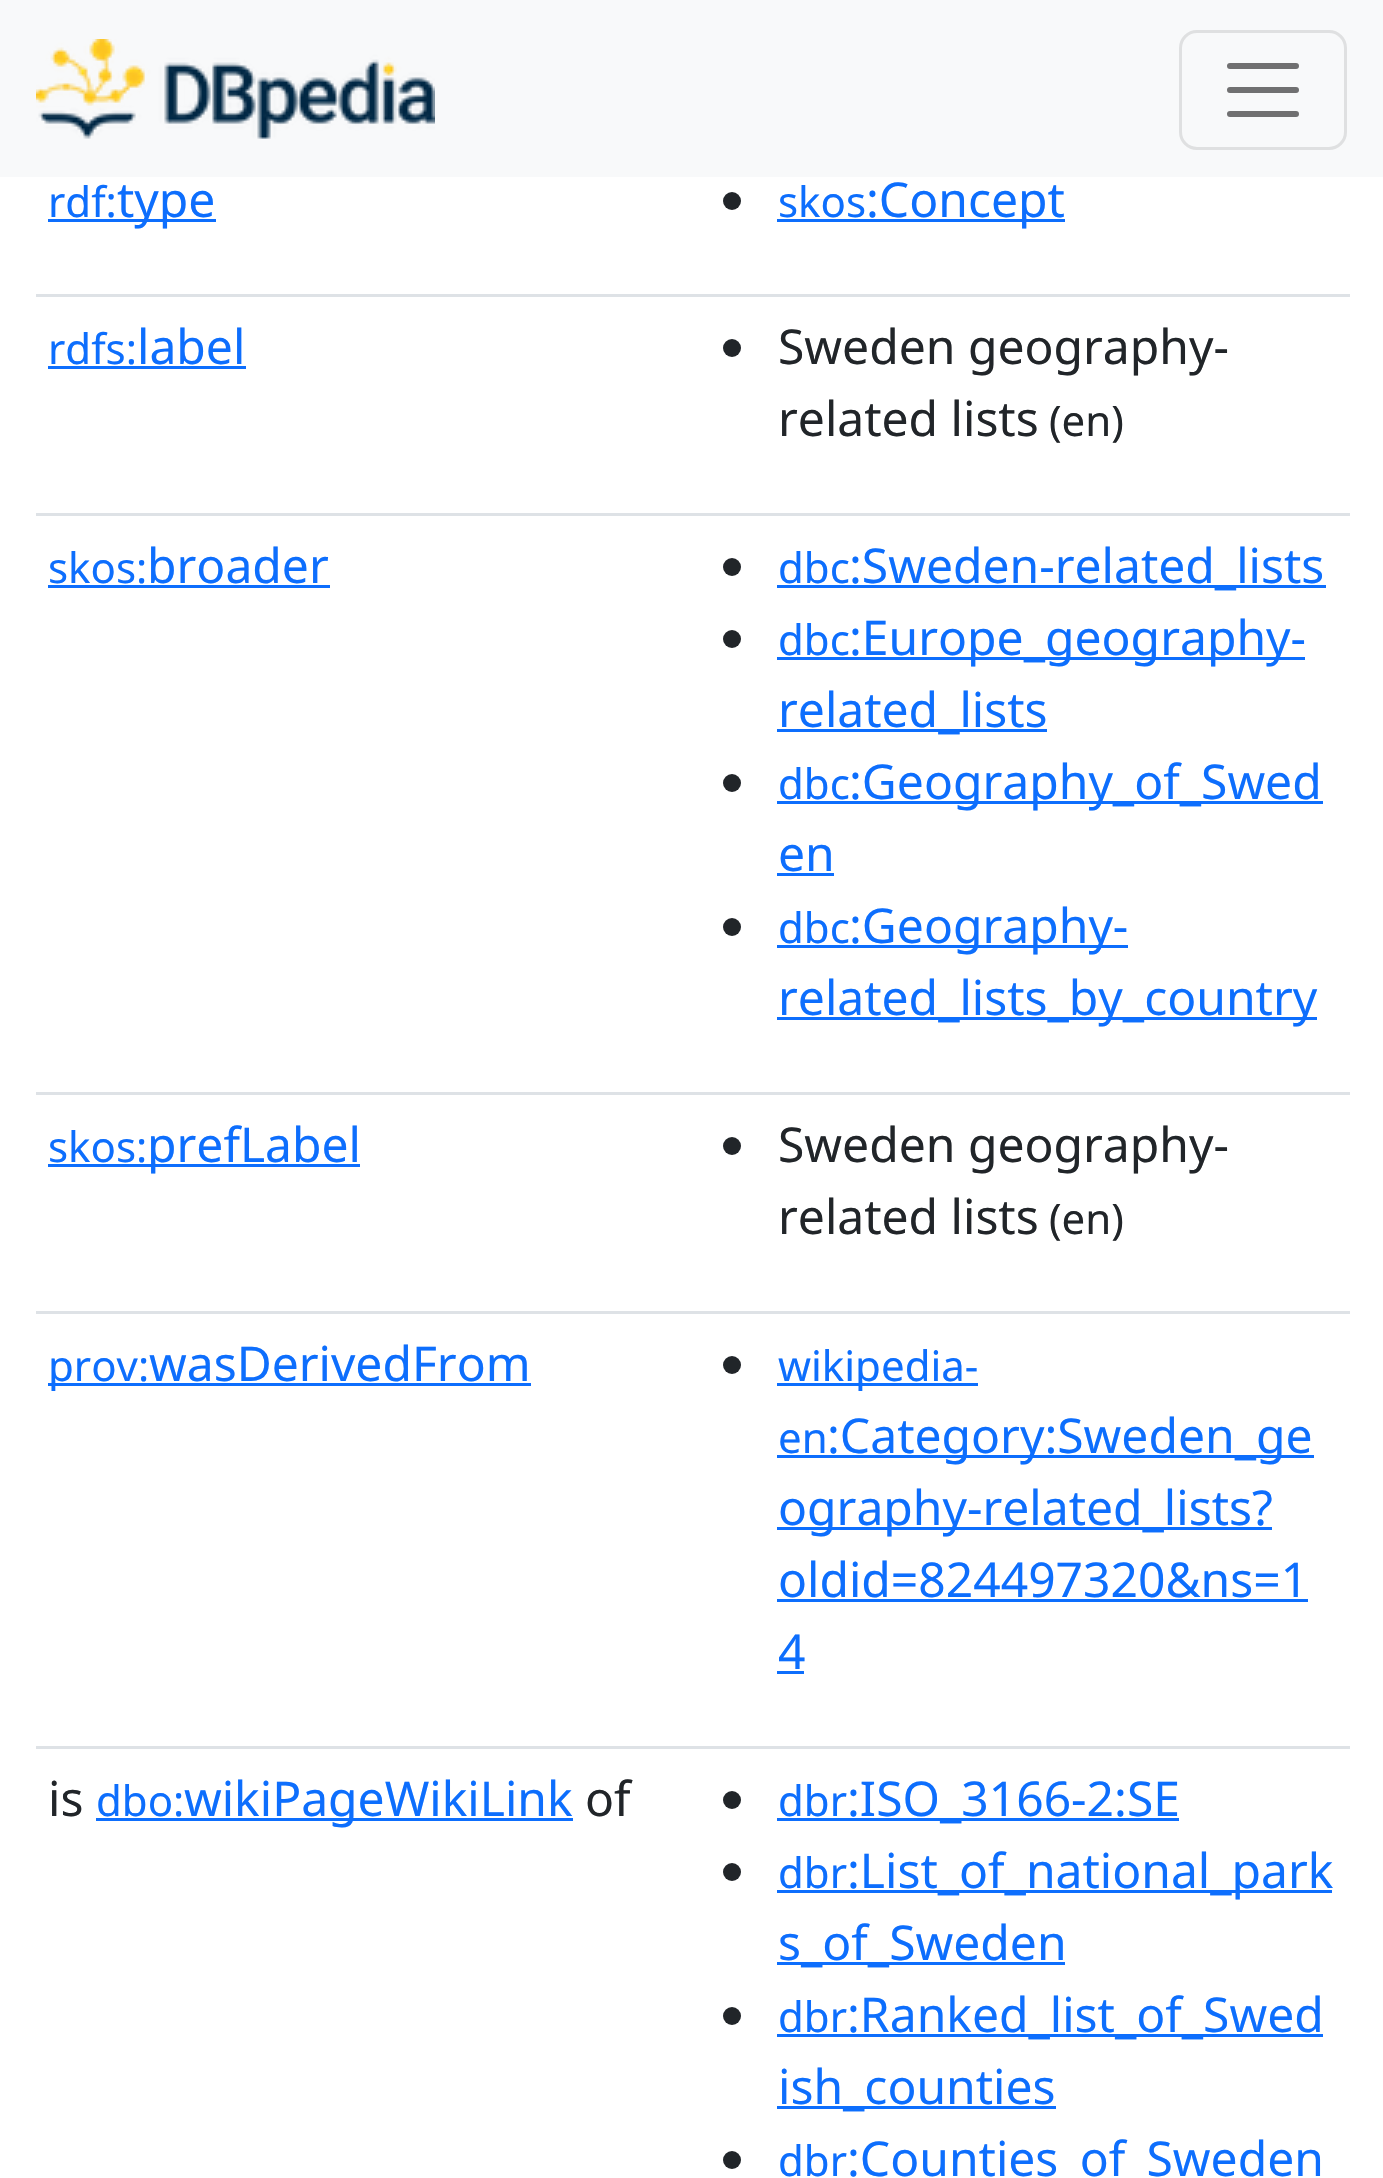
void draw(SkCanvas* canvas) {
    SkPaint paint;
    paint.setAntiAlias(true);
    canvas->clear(0xFFFFFFFF);
    paint.setColor(0xFFF8F9FA);
    canvas->drawRect(SkRect::MakeXYWH(0, 0, 1383, 177), paint);
    canvas->drawImageRect(SkImages::DeferredFromEncodedData(SkData::MakeFromFileName("img1.png")), SkRect::MakeXYWH(36, 39, 399, 100), SkSamplingOptions());
    paint.setStyle(SkPaint::kStroke_Style);
    paint.setStrokeWidth(3);
    paint.setColor(0xFFDFE0E1);
    canvas->drawRoundRect(SkRect::MakeXYWH(1180.5f, 31.5f, 165, 117), 16.5f, 16.5f, paint);
    paint.setStrokeWidth(6);
    paint.setStrokeCap(SkPaint::kRound_Cap);
    paint.setColor(0xFF707071);
    canvas->drawPath(SkPathBuilder().moveTo(1230, 66).lineTo(1296, 66).moveTo(1230, 90).lineTo(1296, 90).moveTo(1230, 114).lineTo(1296, 114).detach(), paint);
    SkFont font1(fontMgr->matchFamilyStyle("Noto Sans", SkFontStyle::Normal()), 42);
    font1.setSubpixel(true);
    paint.setStyle(SkPaint::kFill_Style);
    paint.setColor(0xFF0D6EFD);
    canvas->drawString("rdf:", 48, 217, font1, paint);
    canvas->drawRect(SkRect::MakeXYWH(48, 219, 168, 3), paint);
    SkFont font2(fontMgr->matchFamilyStyle("Noto Sans", SkFontStyle::Normal()), 48);
    font2.setSubpixel(true);
    canvas->drawString("type", 117, 217, font2, paint);
    paint.setColor(0xFFDEE2E6);
    canvas->drawRect(SkRect::MakeXYWH(36, 294, 1314, 3), paint);
    paint.setColor(0xFF212529);
    canvas->drawCircle(732, 201, 9, paint);
    paint.setColor(0xFF0D6EFD);
    canvas->drawString("skos", 778, 217, font1, paint);
    canvas->drawRect(SkRect::MakeXYWH(777, 219, 288, 3), paint);
    canvas->drawString(":Concept", 866, 217, font2, paint);
    canvas->drawString("rdfs:", 48, 364, font1, paint);
    canvas->drawRect(SkRect::MakeXYWH(48, 366, 198, 3), paint);
    canvas->drawString("label", 137, 364, font2, paint);
    paint.setColor(0xFFDEE2E6);
    canvas->drawRect(SkRect::MakeXYWH(36, 513, 1314, 3), paint);
    paint.setColor(0xFF212529);
    canvas->drawCircle(732, 348, 9, paint);
    canvas->drawString("Sweden geography-", 778, 364, font2, paint);
    canvas->drawString("related lists", 778, 436, font2, paint);
    canvas->drawString("(en)", 1049, 436, font1, paint);
    paint.setColor(0xFF0D6EFD);
    canvas->drawString("skos:", 48, 583, font1, paint);
    canvas->drawRect(SkRect::MakeXYWH(48, 585, 282, 3), paint);
    canvas->drawString("broader", 147, 583, font2, paint);
    paint.setColor(0xFFDEE2E6);
    canvas->drawRect(SkRect::MakeXYWH(36, 1092, 1314, 3), paint);
    paint.setColor(0xFF212529);
    canvas->drawCircle(732, 567, 9, paint);
    paint.setColor(0xFF0D6EFD);
    canvas->drawString("dbc", 778, 583, font1, paint);
    canvas->drawRect(SkRect::MakeXYWH(777, 585, 549, 3), paint);
    canvas->drawString(":Sweden-related_lists", 849, 583, font2, paint);
    paint.setColor(0xFF212529);
    canvas->drawCircle(732, 639, 9, paint);
    paint.setColor(0xFF0D6EFD);
    canvas->drawString("dbc", 778, 655, font1, paint);
    canvas->drawRect(SkRect::MakeXYWH(777, 657, 528, 3), paint);
    canvas->drawString(":Europe_geography-", 849, 655, font2, paint);
    canvas->drawRect(SkRect::MakeXYWH(777, 729, 270, 3), paint);
    canvas->drawString("related_lists", 778, 727, font2, paint);
    paint.setColor(0xFF212529);
    canvas->drawCircle(732, 783, 9, paint);
    paint.setColor(0xFF0D6EFD);
    canvas->drawString("dbc", 778, 799, font1, paint);
    canvas->drawRect(SkRect::MakeXYWH(777, 801, 546, 3), paint);
    canvas->drawString(":Geography_of_Swed", 849, 799, font2, paint);
    canvas->drawString("en", 778, 871, font2, paint);
    canvas->drawRect(SkRect::MakeXYWH(777, 873, 57, 3), paint);
    paint.setColor(0xFF212529);
    canvas->drawCircle(732, 927, 9, paint);
    paint.setColor(0xFF0D6EFD);
    canvas->drawString("dbc", 778, 943, font1, paint);
    canvas->drawRect(SkRect::MakeXYWH(777, 945, 351, 3), paint);
    canvas->drawString(":Geography-", 849, 943, font2, paint);
    canvas->drawRect(SkRect::MakeXYWH(777, 1017, 540, 3), paint);
    canvas->drawString("related_lists_by_country", 778, 1015, font2, paint);
    canvas->drawString("skos:", 48, 1162, font1, paint);
    canvas->drawRect(SkRect::MakeXYWH(48, 1164, 312, 3), paint);
    canvas->drawString("prefLabel", 147, 1162, font2, paint);
    paint.setColor(0xFFDEE2E6);
    canvas->drawRect(SkRect::MakeXYWH(36, 1311, 1314, 3), paint);
    paint.setColor(0xFF212529);
    canvas->drawCircle(732, 1146, 9, paint);
    canvas->drawString("Sweden geography-", 778, 1162, font2, paint);
    canvas->drawString("related lists", 778, 1234, font2, paint);
    canvas->drawString("(en)", 1049, 1234, font1, paint);
    paint.setColor(0xFF0D6EFD);
    canvas->drawRect(SkRect::MakeXYWH(48, 1383, 483, 3), paint);
    canvas->drawString("prov:", 48, 1381, font1, paint);
    canvas->drawString("wasDerivedFrom", 149, 1381, font2, paint);
    paint.setColor(0xFFDEE2E6);
    canvas->drawRect(SkRect::MakeXYWH(36, 1746, 1314, 3), paint);
    paint.setColor(0xFF212529);
    canvas->drawCircle(732, 1365, 9, paint);
    paint.setColor(0xFF0D6EFD);
    canvas->drawRect(SkRect::MakeXYWH(777, 1383, 201, 3), paint);
    canvas->drawString("wikipedia-", 778, 1381, font1, paint);
    canvas->drawString("en", 778, 1453, font1, paint);
    canvas->drawRect(SkRect::MakeXYWH(777, 1455, 537, 3), paint);
    canvas->drawString(":Category:Sweden_ge", 827, 1453, font2, paint);
    canvas->drawRect(SkRect::MakeXYWH(777, 1527, 495, 3), paint);
    canvas->drawString("ography-related_lists?", 778, 1525, font2, paint);
    canvas->drawString("oldid=824497320&ns=1", 778, 1597, font2, paint);
    canvas->drawRect(SkRect::MakeXYWH(777, 1599, 531, 3), paint);
    canvas->drawString("4", 778, 1669, font2, paint);
    canvas->drawRect(SkRect::MakeXYWH(777, 1671, 27, 3), paint);
    paint.setColor(0xFF212529);
    canvas->drawString("is", 48, 1816, font2, paint);
    paint.setColor(0xFF0D6EFD);
    canvas->drawString("dbo:", 96, 1816, font1, paint);
    canvas->drawRect(SkRect::MakeXYWH(96, 1818, 477, 3), paint);
    canvas->drawString("wikiPageWikiLink", 184, 1816, font2, paint);
    paint.setColor(0xFF212529);
    canvas->drawString("of", 585, 1816, font2, paint);
    canvas->drawCircle(732, 1800, 9, paint);
    paint.setColor(0xFF0D6EFD);
    canvas->drawString("dbr", 778, 1816, font1, paint);
    canvas->drawRect(SkRect::MakeXYWH(777, 1818, 402, 3), paint);
    canvas->drawString(":ISO_3166-2:SE", 847, 1816, font2, paint);
    paint.setColor(0xFF212529);
    canvas->drawCircle(732, 1872, 9, paint);
    paint.setColor(0xFF0D6EFD);
    canvas->drawString("dbr", 778, 1888, font1, paint);
    canvas->drawRect(SkRect::MakeXYWH(777, 1890, 555, 3), paint);
    canvas->drawString(":List_of_national_park", 847, 1888, font2, paint);
    canvas->drawRect(SkRect::MakeXYWH(777, 1962, 288, 3), paint);
    canvas->drawString("s_of_Sweden", 778, 1960, font2, paint);
    paint.setColor(0xFF212529);
    canvas->drawCircle(732, 2016, 9, paint);
    paint.setColor(0xFF0D6EFD);
    canvas->drawString("dbr", 778, 2032, font1, paint);
    canvas->drawRect(SkRect::MakeXYWH(777, 2034, 546, 3), paint);
    canvas->drawString(":Ranked_list_of_Swed", 847, 2032, font2, paint);
    canvas->drawRect(SkRect::MakeXYWH(777, 2106, 279, 3), paint);
    canvas->drawString("ish_counties", 778, 2104, font2, paint);
    paint.setColor(0xFF212529);
    canvas->drawCircle(732, 2160, 9, paint);
    paint.setColor(0xFF0D6EFD);
    canvas->drawString("dbr", 778, 2176, font1, paint);
    canvas->drawString(":Counties_of_Sweden", 847, 2176, font2, paint);
}
